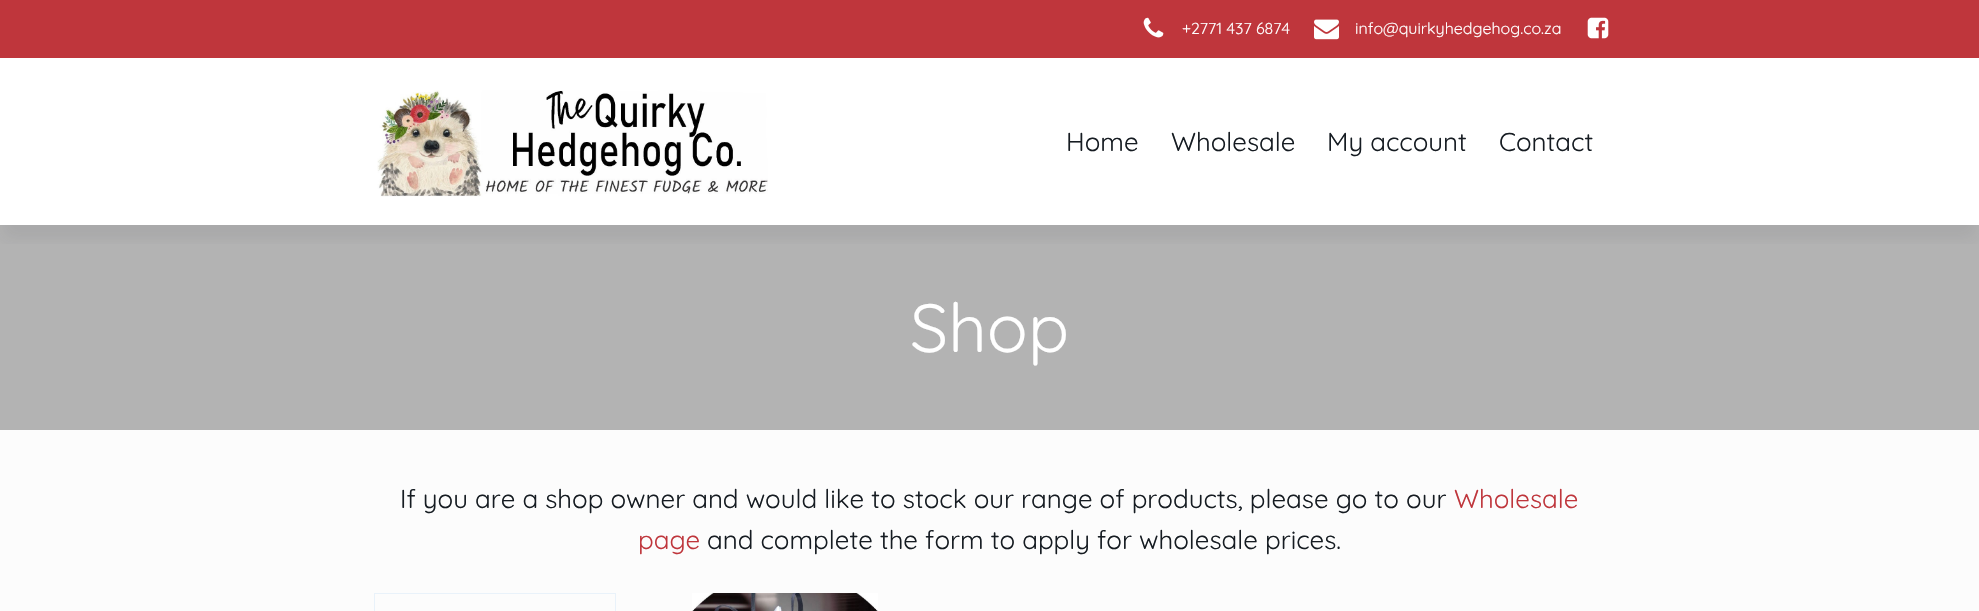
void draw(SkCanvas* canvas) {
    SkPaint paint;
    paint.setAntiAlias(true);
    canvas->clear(0xFFFFFFFF);
    paint.setColor(0xFFBF363C);
    canvas->drawRect(SkRect::MakeXYWH(0, 0, 1979, 58), paint);
    canvas->drawImageRect(SkImages::DeferredFromEncodedData(SkData::MakeFromFileName("img1.png")), SkRect::MakeXYWH(1143, 17, 21, 21), SkSamplingOptions());
    SkFont font1(fontMgr->matchFamilyStyle("Quicksand", SkFontStyle::Normal()), 16);
    font1.setSubpixel(true);
    paint.setColor(0xFFFFFFFF);
    canvas->drawString("+2771 437 6874", 1182, 34, font1, paint);
    canvas->drawImageRect(SkImages::DeferredFromEncodedData(SkData::MakeFromFileName("img2.png")), SkRect::MakeXYWH(1314, 19, 25, 21), SkSamplingOptions());
    canvas->drawString("info@quirkyhedgehog.co.za", 1355, 34, font1, paint);
    canvas->drawImageRect(SkImages::DeferredFromEncodedData(SkData::MakeFromFileName("img3.png")), SkRect::MakeXYWH(1587, 17, 22, 22), SkSamplingOptions());
    paint.setColor(0xFFB3B3B3);
    canvas->drawRect(SkRect::MakeXYWH(0, 225, 1979, 205), paint);
    canvas->save();
    canvas->clipRect(SkRect::MakeXYWH(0, 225, 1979, 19));
    paint.setColor(0x1420272D);
    paint.setMaskFilter(SkMaskFilter::MakeBlur(kNormal_SkBlurStyle, 8));
    canvas->drawRect(SkRect::MakeXYWH(2, 76, 1975, 163), paint);
    paint.setMaskFilter(nullptr);
    canvas->restore();
    canvas->drawImageRect(SkImages::DeferredFromEncodedData(SkData::MakeFromFileName("img4.png")), SkRect::MakeXYWH(377, 90, 391, 107), SkSamplingOptions());
    SkFont font2(fontMgr->matchFamilyStyle("Quicksand", SkFontStyle::Normal()), 25.9f);
    font2.setSubpixel(true);
    paint.setColor(0xFF161C22);
    canvas->drawString("Home", 1066, 151, font2, paint);
    canvas->drawString("Wholesale", 1171, 151, font2, paint);
    canvas->drawString("My account", 1327, 151, font2, paint);
    canvas->drawString("Contact", 1499, 151, font2, paint);
    SkFont font3(fontMgr->matchFamilyStyle("Quicksand", SkFontStyle::Normal()), 68);
    font3.setSubpixel(true);
    paint.setColor(0xFFFFFFFF);
    canvas->drawString("Shop", 910, 352, font3, paint);
    paint.setColor(0xFFFCFCFC);
    canvas->drawRect(SkRect::MakeXYWH(0, 430, 1979, 181), paint);
    paint.setColor(0xFF161C22);
    canvas->drawString("If you are a shop owner and would like to stock our range of products, please go to our", 400, 508, font2, paint);
    paint.setColor(0xFFBF363C);
    canvas->drawString("Wholesale", 1454, 508, font2, paint);
    canvas->drawString("page", 638, 549, font2, paint);
    paint.setColor(0xFF161C22);
    canvas->drawString("and complete the form to apply for wholesale prices.", 707, 549, font2, paint);
    paint.setStyle(SkPaint::kStroke_Style);
    paint.setStrokeWidth(1);
    paint.setColor(0xFFE9F2FA);
    canvas->drawRect(SkRect::MakeXYWH(374.5f, 593.5f, 241, 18), paint);
    canvas->drawImageRect(SkImages::DeferredFromEncodedData(SkData::MakeFromFileName("img5.png")), SkRect::MakeXYWH(692, 593, 186, 18), SkSamplingOptions());
}
